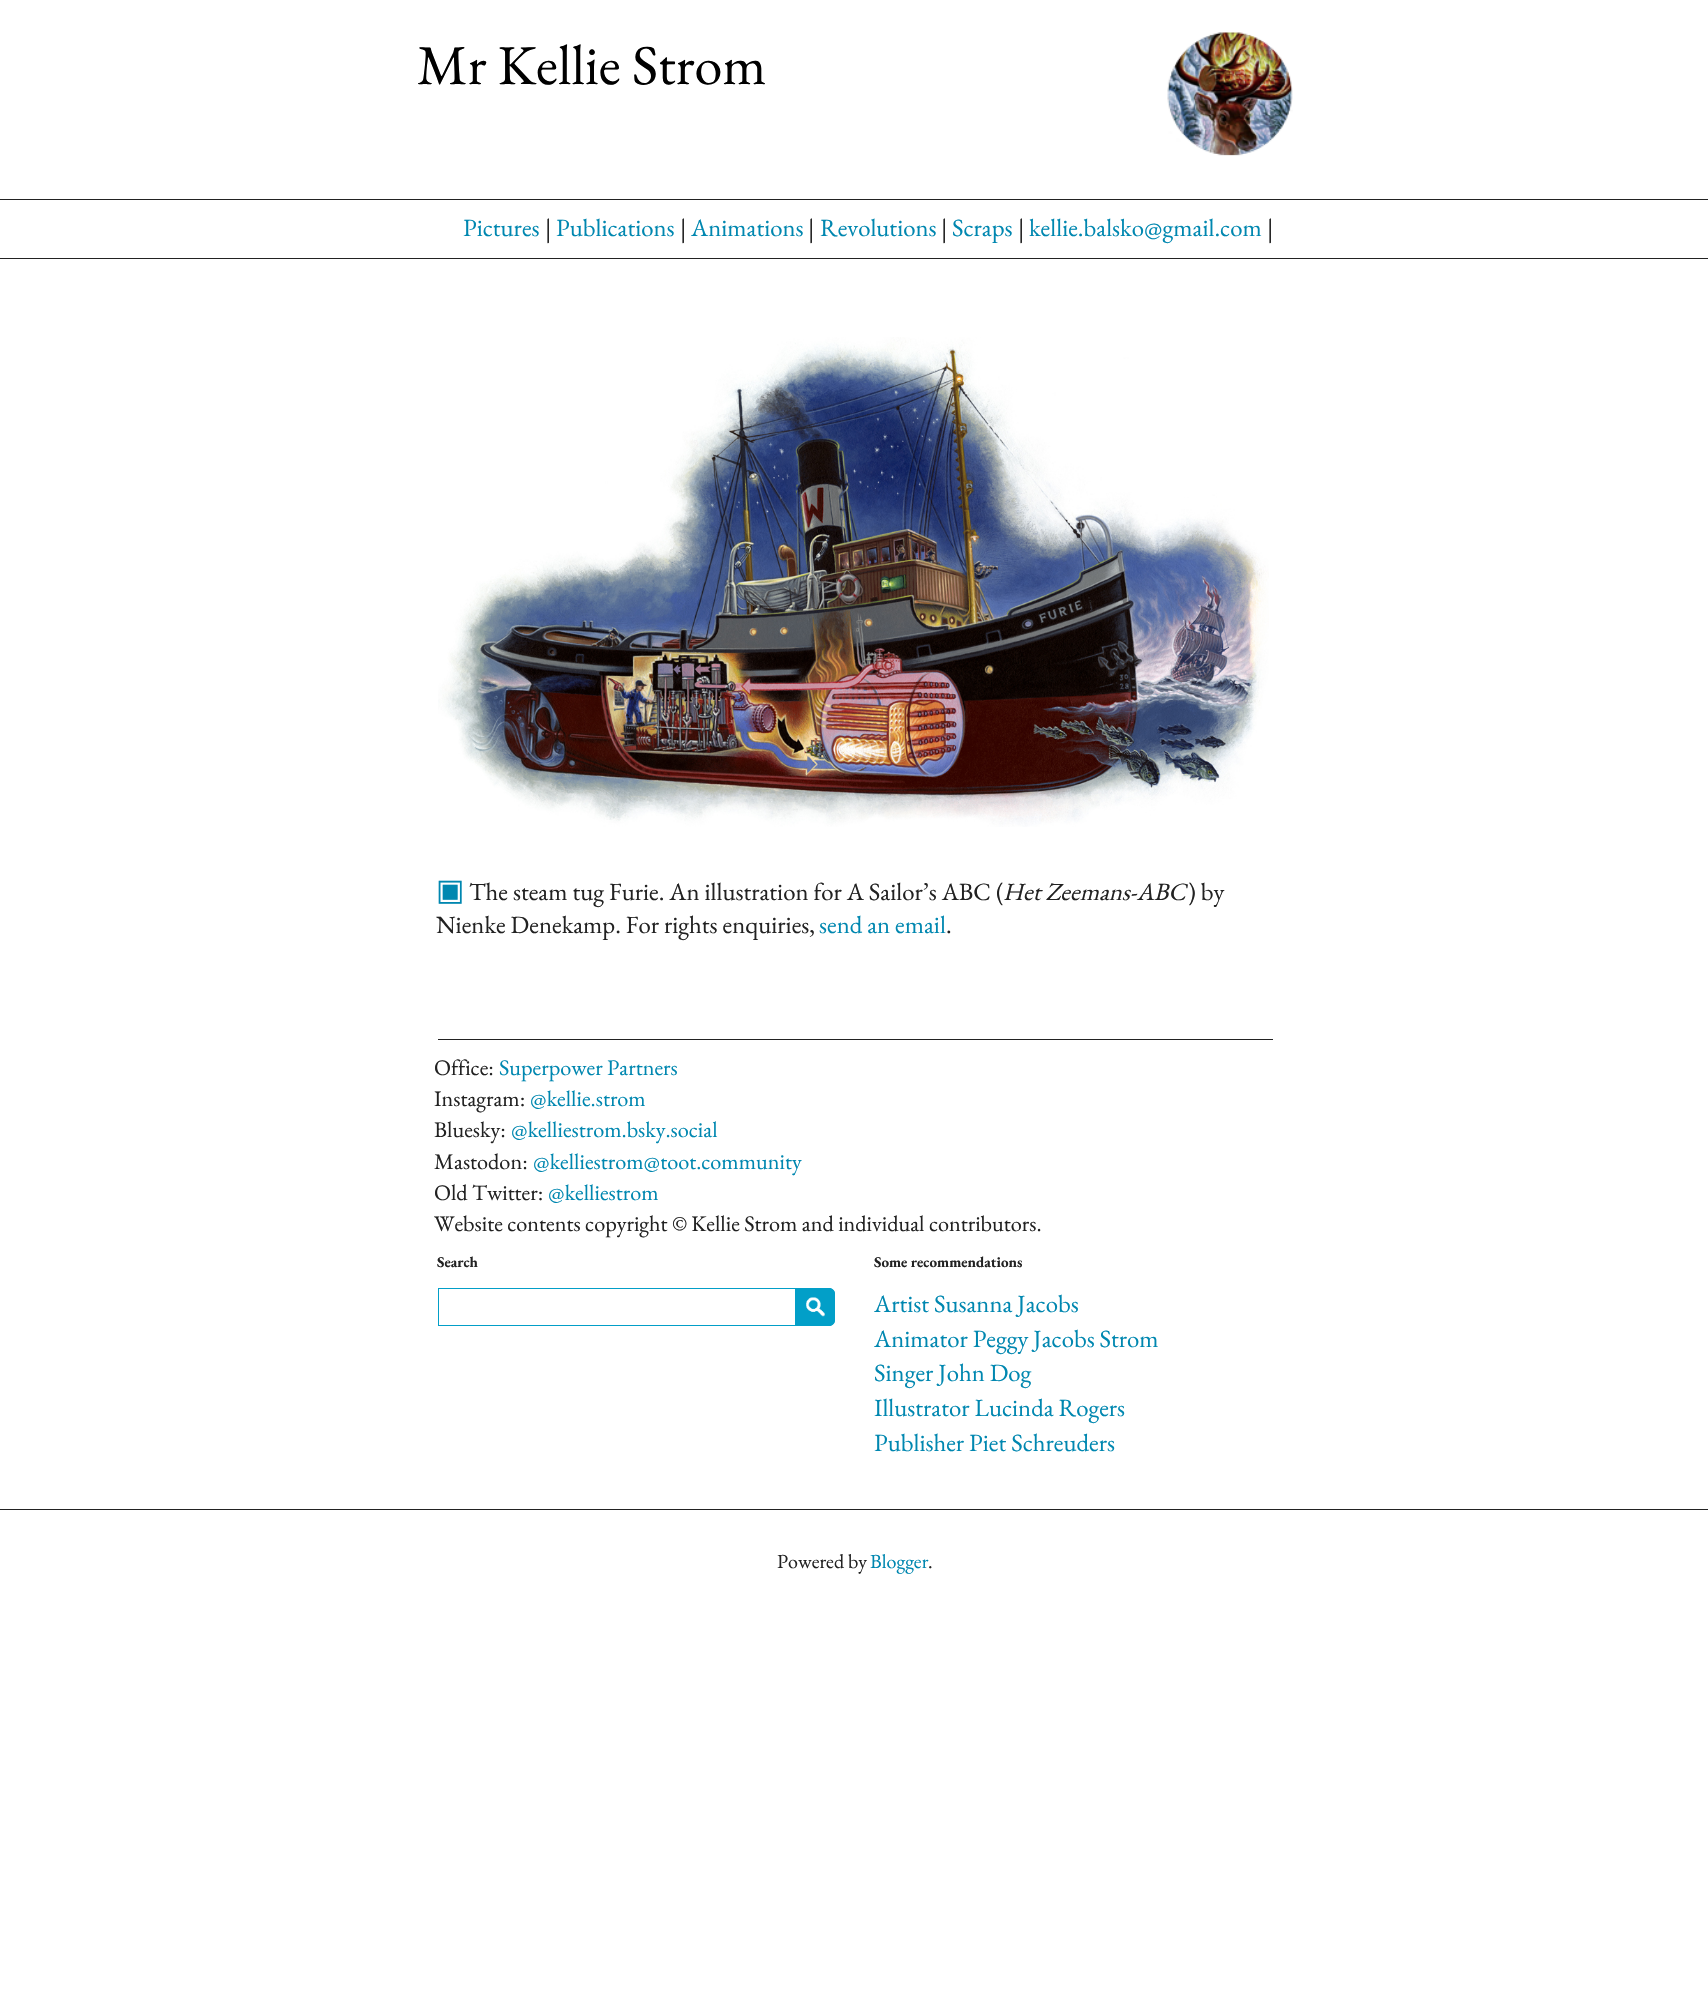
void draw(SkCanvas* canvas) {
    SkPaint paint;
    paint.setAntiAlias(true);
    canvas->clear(0xFFFFFFFF);
    SkFont font1(fontMgr->matchFamilyStyle("EB Garamond", SkFontStyle::Normal()), 56.25f);
    font1.setSubpixel(true);
    paint.setColor(0xFF000000);
    canvas->drawString("Mr Kellie Strom", 417, 84, font1, paint);
    canvas->drawImageRect(SkImages::DeferredFromEncodedData(SkData::MakeFromFileName("img1.png")), SkRect::MakeXYWH(1167, 32, 126, 124), SkSamplingOptions());
    paint.setColor(0xFF222222);
    canvas->drawRect(SkRect::MakeXYWH(0, 199, 1708, 1), paint);
    SkFont font2(fontMgr->matchFamilyStyle("EB Garamond", SkFontStyle::Normal()), 24.75f);
    font2.setSubpixel(true);
    paint.setColor(0xFF0087B0);
    canvas->drawString("Pictures", 463, 236, font2, paint);
    paint.setColor(0xFF222222);
    canvas->drawString("|", 545, 236, font2, paint);
    paint.setColor(0xFF0087B0);
    canvas->drawString("Publications", 556, 236, font2, paint);
    paint.setColor(0xFF222222);
    canvas->drawString("|", 680, 236, font2, paint);
    paint.setColor(0xFF0087B0);
    canvas->drawString("Animations", 691, 236, font2, paint);
    paint.setColor(0xFF222222);
    canvas->drawString("|", 808, 236, font2, paint);
    paint.setColor(0xFF0087B0);
    canvas->drawString("Revolutions", 820, 236, font2, paint);
    paint.setColor(0xFF222222);
    canvas->drawString("|", 941, 236, font2, paint);
    paint.setColor(0xFF0087B0);
    canvas->drawString("Scraps", 952, 236, font2, paint);
    paint.setColor(0xFF222222);
    canvas->drawString("|", 1018, 236, font2, paint);
    paint.setColor(0xFF0087B0);
    canvas->drawString("kellie.balsko@gmail.com", 1029, 236, font2, paint);
    paint.setColor(0xFF222222);
    canvas->drawString("|", 1267, 236, font2, paint);
    canvas->drawRect(SkRect::MakeXYWH(0, 258, 1708, 1), paint);
    canvas->drawImageRect(SkImages::DeferredFromEncodedData(SkData::MakeFromFileName("img2.png")), SkRect::MakeXYWH(438, 337, 831, 490), SkSamplingOptions());
    SkFont font3(fontMgr->matchFamilyStyle("DejaVu Sans", SkFontStyle::Normal()), 30);
    font3.setSubpixel(true);
    paint.setColor(0xFF0087B0);
    canvas->drawString("▣", 436, 900, font3, paint);
    paint.setColor(0xFF222222);
    canvas->drawString("The steam tug Furie. An illustration for A Sailor’s ABC (", 469, 900, font2, paint);
    SkFont font4(fontMgr->matchFamilyStyle("EB Garamond", SkFontStyle::Italic()), 24.75f);
    font4.setSubpixel(true);
    canvas->drawString("Het Zeemans-ABC", 1003, 900, font4, paint);
    canvas->drawString(") by", 1188, 900, font2, paint);
    canvas->drawString("Nienke Denekamp. For rights enquiries,", 436, 933, font2, paint);
    paint.setColor(0xFF0087B0);
    canvas->drawString("send an email", 819, 933, font2, paint);
    paint.setColor(0xFF222222);
    canvas->drawString(".", 946, 933, font2, paint);
    canvas->drawRect(SkRect::MakeXYWH(438, 1039, 835, 1), paint);
    SkFont font5(fontMgr->matchFamilyStyle("EB Garamond", SkFontStyle::Normal()), 22.25f);
    font5.setSubpixel(true);
    canvas->drawString("Office:", 434, 1075, font5, paint);
    paint.setColor(0xFF0087B0);
    canvas->drawString("Superpower Partners", 499, 1075, font5, paint);
    paint.setColor(0xFF222222);
    canvas->drawString("Instagram:", 434, 1106, font5, paint);
    paint.setColor(0xFF0087B0);
    canvas->drawString("@kellie.strom", 530, 1106, font5, paint);
    paint.setColor(0xFF222222);
    canvas->drawString("Bluesky:", 434, 1137, font5, paint);
    paint.setColor(0xFF0087B0);
    canvas->drawString("@kelliestrom.bsky.social", 511, 1137, font5, paint);
    paint.setColor(0xFF222222);
    canvas->drawString("Mastodon:", 434, 1169, font5, paint);
    paint.setColor(0xFF0087B0);
    canvas->drawString("@kelliestrom@toot.community", 533, 1169, font5, paint);
    paint.setColor(0xFF222222);
    canvas->drawString("Old Twitter:", 434, 1200, font5, paint);
    paint.setColor(0xFF0087B0);
    canvas->drawString("@kelliestrom", 548, 1200, font5, paint);
    paint.setColor(0xFF222222);
    canvas->drawString("Website contents copyright © Kellie Strom and individual contributors.", 434, 1231, font5, paint);
    SkFont font6(fontMgr->matchFamilyStyle("EB Garamond", SkFontStyle::Bold()), 15);
    font6.setSubpixel(true);
    canvas->drawString("Search", 437, 1267, font6, paint);
    paint.setStyle(SkPaint::kStroke_Style);
    paint.setStrokeWidth(1);
    paint.setColor(0xFF029FC8);
    canvas->drawRect(SkRect::MakeXYWH(438.5f, 1288.5f, 357, 37), paint);
    paint.setStyle(SkPaint::kFill_Style);
    canvas->drawPath(SkPathBuilder().moveTo(796, 1288).lineTo(829, 1288).cubicTo(832.5f, 1288, 835, 1290.5f, 835, 1294).lineTo(835, 1320).cubicTo(835, 1323.5f, 832.5f, 1326, 829, 1326).lineTo(796, 1326).close().detach(), paint);
    canvas->drawImageRect(SkImages::DeferredFromEncodedData(SkData::MakeFromFileName("img3.png")), SkRect::MakeXYWH(806, 1297, 19, 20), SkSamplingOptions());
    paint.setStyle(SkPaint::kStroke_Style);
    canvas->drawPath(SkPathBuilder().moveTo(796.5f, 1288.5f).lineTo(829, 1288.5f).cubicTo(832, 1288.5f, 834.5f, 1291, 834.5f, 1294).lineTo(834.5f, 1320).cubicTo(834.5f, 1323, 832, 1325.5f, 829, 1325.5f).lineTo(796.5f, 1325.5f).close().detach(), paint);
    paint.setStyle(SkPaint::kFill_Style);
    paint.setColor(0xFF222222);
    canvas->drawString("Some recommendations", 874, 1267, font6, paint);
    paint.setColor(0xFF0087B0);
    canvas->drawString("Artist Susanna Jacobs", 874, 1312, font2, paint);
    canvas->drawString("Animator Peggy Jacobs Strom", 874, 1347, font2, paint);
    canvas->drawString("Singer John Dog", 874, 1381, font2, paint);
    canvas->drawString("Illustrator Lucinda Rogers", 874, 1416, font2, paint);
    canvas->drawString("Publisher Piet Schreuders", 874, 1451, font2, paint);
    paint.setColor(0xFF222222);
    canvas->drawRect(SkRect::MakeXYWH(0, 1509, 1708, 1), paint);
    SkFont font7(fontMgr->matchFamilyStyle("EB Garamond", SkFontStyle::Normal()), 20);
    font7.setSubpixel(true);
    canvas->drawString("Powered by", 777, 1568, font7, paint);
    paint.setColor(0xFF0087B0);
    canvas->drawString("Blogger", 870, 1568, font7, paint);
    paint.setColor(0xFF222222);
    canvas->drawString(".", 928, 1568, font7, paint);
}
